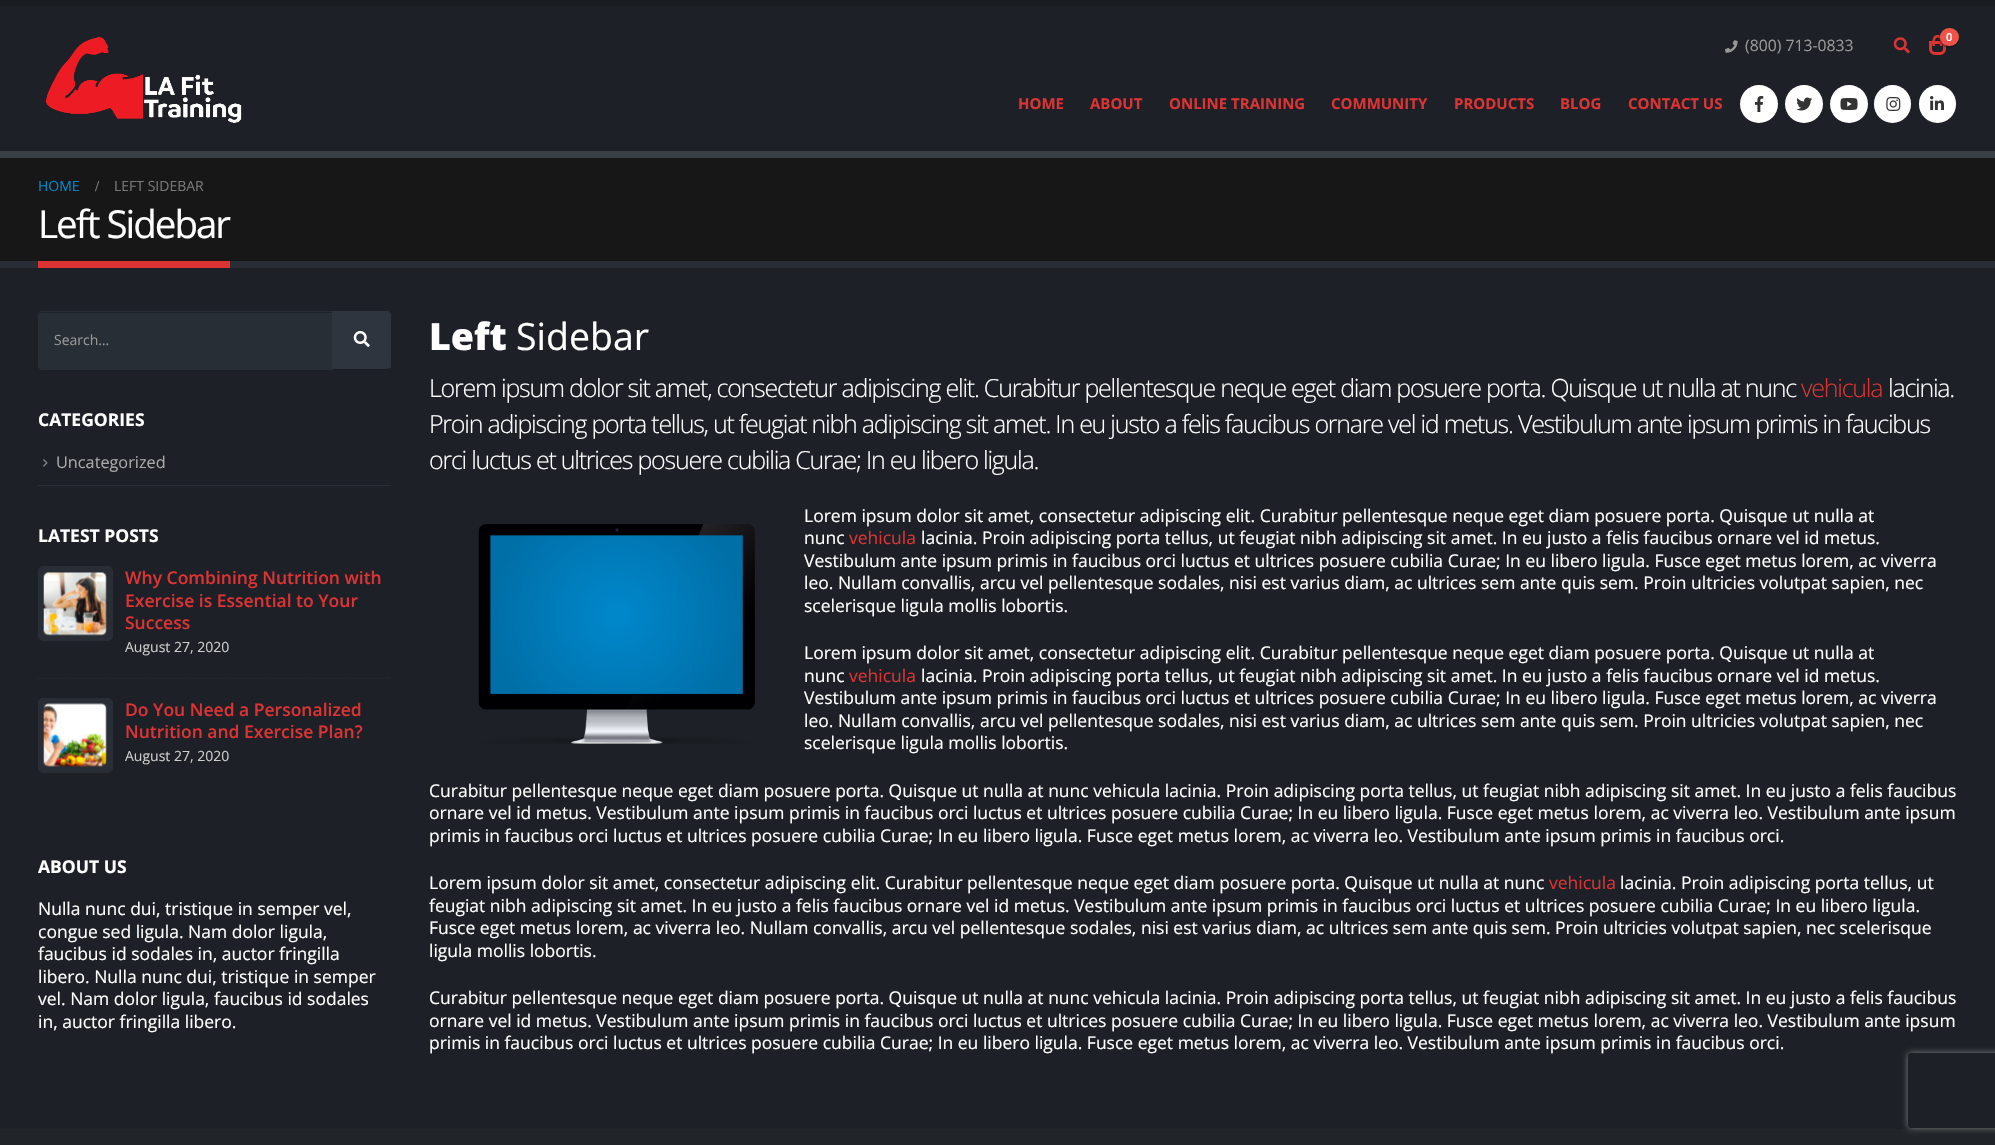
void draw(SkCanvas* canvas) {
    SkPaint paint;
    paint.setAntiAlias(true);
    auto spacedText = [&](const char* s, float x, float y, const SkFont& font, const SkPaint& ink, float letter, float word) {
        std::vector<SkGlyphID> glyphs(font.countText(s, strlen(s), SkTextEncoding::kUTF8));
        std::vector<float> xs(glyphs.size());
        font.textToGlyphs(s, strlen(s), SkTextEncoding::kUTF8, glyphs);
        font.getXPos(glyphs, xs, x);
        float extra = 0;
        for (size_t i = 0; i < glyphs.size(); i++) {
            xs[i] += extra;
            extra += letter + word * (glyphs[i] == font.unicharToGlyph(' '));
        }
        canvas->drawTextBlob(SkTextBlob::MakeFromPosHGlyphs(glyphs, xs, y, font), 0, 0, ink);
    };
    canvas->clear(0xFF1D2127);
    paint.setColor(0xFF191C21);
    canvas->drawRect(SkRect::MakeXYWH(0, 0, 1995, 6), paint);
    canvas->drawImageRect(SkImages::DeferredFromEncodedData(SkData::MakeFromFileName("img1.png")), SkRect::MakeXYWH(46, 37, 196, 86), SkSamplingOptions());
    canvas->drawImageRect(SkImages::DeferredFromEncodedData(SkData::MakeFromFileName("img2.png")), SkRect::MakeXYWH(1725, 40, 13, 13), SkSamplingOptions());
    SkFont font1(fontMgr->matchFamilyStyle("Open Sans", SkFontStyle::Normal()), 15.75f);
    font1.setSubpixel(true);
    paint.setColor(0xFF999999);
    canvas->drawString("(800) 713-0833", 1745, 51, font1, paint);
    canvas->drawImageRect(SkImages::DeferredFromEncodedData(SkData::MakeFromFileName("img3.png")), SkRect::MakeXYWH(1893, 37, 17, 17), SkSamplingOptions());
    paint.setStyle(SkPaint::kStroke_Style);
    paint.setStrokeWidth(3);
    paint.setColor(0xFFDD3333);
    canvas->drawPath(SkPathBuilder().moveTo(1930.5f, 42.5f).lineTo(1944.5f, 42.5f).lineTo(1944.5f, 49).cubicTo(1944.5f, 51.5f, 1942.5f, 53.5f, 1940, 53.5f).lineTo(1935, 53.5f).cubicTo(1932.5f, 53.5f, 1930.5f, 51.5f, 1930.5f, 49).close().detach(), paint);
    paint.setStyle(SkPaint::kFill_Style);
    canvas->drawPath(SkPathBuilder(SkPathFillType::kEvenOdd).moveTo(1937.5f, 35).cubicTo(1943.5f, 35, 1942.5f, 42, 1942.5f, 46).lineTo(1932.5f, 46).cubicTo(1932.5f, 42, 1931.5f, 35, 1937.5f, 35).close().moveTo(1937.5f, 37.5f).cubicTo(1941, 37.5f, 1940, 44, 1940, 46).lineTo(1935, 46).cubicTo(1935, 44, 1934, 37.5f, 1937.5f, 37.5f).close().detach(), paint);
    paint.setColor(0x4D000000);
    paint.setMaskFilter(SkMaskFilter::MakeBlur(kNormal_SkBlurStyle, 1));
    canvas->drawRoundRect(SkRect::MakeXYWH(1939, 29, 19, 19), 9.5f, 9.5f, paint);
    paint.setMaskFilter(nullptr);
    paint.setColor(0xFFED5348);
    canvas->drawRoundRect(SkRect::MakeXYWH(1940, 28, 19, 18), 9, 9, paint);
    SkFont font2(fontMgr->matchFamilyStyle("Open Sans", SkFontStyle(600, SkFontStyle::kNormal_Width, SkFontStyle::kUpright_Slant)), 11);
    font2.setSubpixel(true);
    paint.setColor(0xFFFFFFFF);
    canvas->drawString("0", 1946, 41, font2, paint);
    SkFont font3(fontMgr->matchFamilyStyle("Open Sans", SkFontStyle::Bold()), 15);
    font3.setSubpixel(true);
    paint.setColor(0xFFDD3333);
    canvas->drawString("HOME", 1018, 109, font3, paint);
    canvas->drawString("ABOUT", 1090, 109, font3, paint);
    canvas->drawString("ONLINE TRAINING", 1169, 109, font3, paint);
    canvas->drawString("COMMUNITY", 1331, 109, font3, paint);
    canvas->drawString("PRODUCTS", 1454, 109, font3, paint);
    canvas->drawString("BLOG", 1560, 109, font3, paint);
    canvas->drawString("CONTACT US", 1628, 109, font3, paint);
    paint.setColor(0xFFFFFFFF);
    canvas->drawCircle(1759, 104, 19, paint);
    canvas->drawImageRect(SkImages::DeferredFromEncodedData(SkData::MakeFromFileName("img4.png")), SkRect::MakeXYWH(1755, 96, 9, 16), SkSamplingOptions());
    canvas->drawCircle(1804, 104, 19, paint);
    canvas->drawImageRect(SkImages::DeferredFromEncodedData(SkData::MakeFromFileName("img5.png")), SkRect::MakeXYWH(1796, 97, 17, 14), SkSamplingOptions());
    canvas->drawCircle(1849, 104, 19, paint);
    canvas->drawImageRect(SkImages::DeferredFromEncodedData(SkData::MakeFromFileName("img6.png")), SkRect::MakeXYWH(1840, 98, 18, 12), SkSamplingOptions());
    canvas->drawRoundRect(SkRect::MakeXYWH(1874, 85, 37, 38), 18.5f, 18.5f, paint);
    canvas->drawImageRect(SkImages::DeferredFromEncodedData(SkData::MakeFromFileName("img7.png")), SkRect::MakeXYWH(1886, 97, 15, 14), SkSamplingOptions());
    canvas->drawRoundRect(SkRect::MakeXYWH(1919, 85, 37, 38), 18.5f, 18.5f, paint);
    canvas->drawImageRect(SkImages::DeferredFromEncodedData(SkData::MakeFromFileName("img8.png")), SkRect::MakeXYWH(1930, 96, 14, 14), SkSamplingOptions());
    paint.setColor(0xFF171717);
    canvas->drawRect(SkRect::MakeXYWH(0, 158, 1995, 103), paint);
    paint.setColor(0xFF384045);
    canvas->drawRect(SkRect::MakeXYWH(0, 151, 1995, 7), paint);
    paint.setColor(0xFF282D36);
    canvas->drawRect(SkRect::MakeXYWH(0, 261, 1995, 7), paint);
    SkFont font4(fontMgr->matchFamilyStyle("Open Sans", SkFontStyle::Normal()), 14);
    font4.setSubpixel(true);
    paint.setColor(0xFF0088CC);
    canvas->drawString("HOME", 38, 191, font4, paint);
    SkFont font5(fontMgr->matchFamilyStyle("Liberation Serif", SkFontStyle::Bold()), 15);
    font5.setSubpixel(true);
    paint.setColor(0xFF777777);
    canvas->drawString("/", 95, 191, font5, paint);
    canvas->drawString("LEFT SIDEBAR", 114, 191, font4, paint);
    SkFont font6(fontMgr->matchFamilyStyle("Open Sans", SkFontStyle::Normal()), 38.5f);
    font6.setSubpixel(true);
    paint.setColor(0xFFFFFFFF);
    spacedText("Left Sidebar", 38, 238, font6, paint, -2, 0);
    paint.setColor(0xFFDD3333);
    canvas->drawRect(SkRect::MakeXYWH(38, 261, 192, 7), paint);
    paint.setColor(0xFF282E36);
    canvas->drawPath(SkPathBuilder().moveTo(41.5f, 313).lineTo(333, 313).lineTo(333, 369).lineTo(41.5f, 369).cubicTo(40, 369, 39, 368, 39, 366.5f).lineTo(39, 315.5f).cubicTo(39, 314, 40, 313, 41.5f, 313).close().detach(), paint);
    paint.setStyle(SkPaint::kStroke_Style);
    paint.setStrokeWidth(1);
    canvas->drawPath(SkPathBuilder().moveTo(42, 311.5f).lineTo(333.5f, 311.5f).lineTo(333.5f, 369.5f).lineTo(42, 369.5f).cubicTo(40, 369.5f, 38.5f, 368, 38.5f, 366).lineTo(38.5f, 315).cubicTo(38.5f, 313, 40, 311.5f, 42, 311.5f).close().detach(), paint);
    paint.setStyle(SkPaint::kFill_Style);
    paint.setColor(0xFF999999);
    canvas->drawString("Search…", 54, 345, font4, paint);
    paint.setColor(0xFF2E353E);
    canvas->drawPath(SkPathBuilder().moveTo(333, 311).lineTo(386, 311).cubicTo(389, 311, 391, 313, 391, 316).lineTo(391, 365).cubicTo(391, 368, 389, 370, 386, 370).lineTo(333, 370).close().detach(), paint);
    canvas->drawPath(SkPathBuilder().moveTo(334, 312).lineTo(334, 313).lineTo(332, 311).lineTo(388, 311).lineTo(390, 313).lineTo(389, 314).cubicTo(388, 313, 387, 312, 386, 312).close().detach(), paint);
    canvas->drawPath(SkPathBuilder().moveTo(390, 313).cubicTo(391, 313, 391, 315, 391, 316).lineTo(391, 365).cubicTo(391, 366, 391, 368, 390, 368).lineTo(389, 368).lineTo(390, 365).lineTo(390, 316).lineTo(389, 314).close().detach(), paint);
    paint.setColor(0xFF191C21);
    canvas->drawPath(SkPathBuilder().moveTo(332, 370).lineTo(386, 370).cubicTo(388, 370, 389, 369, 390, 368).lineTo(389, 368).lineTo(386, 369).lineTo(334, 369).lineTo(334, 368).close().detach(), paint);
    paint.setColor(0xFF2E353E);
    canvas->drawPath(SkPathBuilder().moveTo(332, 370).lineTo(334, 368).lineTo(334, 313).lineTo(332, 311).close().detach(), paint);
    canvas->drawImageRect(SkImages::DeferredFromEncodedData(SkData::MakeFromFileName("img9.png")), SkRect::MakeXYWH(353, 331, 17, 16), SkSamplingOptions());
    SkFont font7(fontMgr->matchFamilyStyle("Open Sans", SkFontStyle::Bold()), 17.5f);
    font7.setSubpixel(true);
    paint.setColor(0xFFFFFFFF);
    canvas->drawString("CATEGORIES", 38, 426, font7, paint);
    paint.setColor(0xFF282E36);
    canvas->drawRect(SkRect::MakeXYWH(38, 485, 353, 1), paint);
    canvas->drawImageRect(SkImages::DeferredFromEncodedData(SkData::MakeFromFileName("img10.png")), SkRect::MakeXYWH(43, 459, 5, 8), SkSamplingOptions());
    SkFont font8(fontMgr->matchFamilyStyle("Open Sans", SkFontStyle::Normal()), 16.25f);
    font8.setSubpixel(true);
    paint.setColor(0xFFA9A9A9);
    canvas->drawString("Uncategorized", 56, 468, font8, paint);
    paint.setColor(0xFFFFFFFF);
    canvas->drawString("LATEST POSTS", 38, 542, font7, paint);
    paint.setColor(0xFF282D36);
    canvas->drawRoundRect(SkRect::MakeXYWH(38.5f, 566.5f, 74, 74), 4.5f, 4.5f, paint);
    paint.setStyle(SkPaint::kStroke_Style);
    canvas->drawRoundRect(SkRect::MakeXYWH(38.5f, 566.5f, 74, 74), 4.5f, 4.5f, paint);
    canvas->drawImageRect(SkImages::DeferredFromEncodedData(SkData::MakeFromFileName("img11.png")), SkRect::MakeXYWH(43, 572, 64, 64), SkSamplingOptions());
    SkFont font9(fontMgr->matchFamilyStyle("Open Sans", SkFontStyle(600, SkFontStyle::kNormal_Width, SkFontStyle::kUpright_Slant)), 17.5f);
    font9.setSubpixel(true);
    paint.setStyle(SkPaint::kFill_Style);
    paint.setColor(0xFFDD3333);
    canvas->drawString("Why Combining Nutrition with", 125, 584, font9, paint);
    canvas->drawString("Exercise is Essential to Your", 125, 607, font9, paint);
    canvas->drawString("Success", 125, 629, font9, paint);
    paint.setColor(0xFFCCCCCC);
    canvas->drawString("August 27, 2020", 125, 652, font4, paint);
    paint.setStyle(SkPaint::kStroke_Style);
    paint.setStrokeWidth(1.2f);
    paint.setColor(0xFF282E36);
    paint.setPathEffect(SkDashPathEffect::Make({{1.25f, 1.25f}}, 0));
    canvas->drawPath(SkPathBuilder().moveTo(37.5f, 678).lineTo(391, 678).detach(), paint);
    paint.setPathEffect(nullptr);
    paint.setStyle(SkPaint::kFill_Style);
    paint.setColor(0xFF282D36);
    canvas->drawRoundRect(SkRect::MakeXYWH(38.5f, 698.5f, 74, 74), 4.5f, 4.5f, paint);
    paint.setStyle(SkPaint::kStroke_Style);
    paint.setStrokeWidth(1);
    canvas->drawRoundRect(SkRect::MakeXYWH(38.5f, 698.5f, 74, 74), 4.5f, 4.5f, paint);
    canvas->drawImageRect(SkImages::DeferredFromEncodedData(SkData::MakeFromFileName("img12.png")), SkRect::MakeXYWH(43, 703, 64, 64), SkSamplingOptions());
    paint.setStyle(SkPaint::kFill_Style);
    paint.setColor(0xFFDD3333);
    canvas->drawString("Do You Need a Personalized", 125, 716, font9, paint);
    canvas->drawString("Nutrition and Exercise Plan?", 125, 738, font9, paint);
    paint.setColor(0xFFCCCCCC);
    canvas->drawString("August 27, 2020", 125, 761, font4, paint);
    paint.setColor(0xFFFFFFFF);
    canvas->drawString("ABOUT US", 38, 873, font7, paint);
    SkFont font10(fontMgr->matchFamilyStyle("Open Sans", SkFontStyle::Normal()), 17.5f);
    font10.setSubpixel(true);
    canvas->drawString("Nulla nunc dui, tristique in semper vel,", 38, 915, font10, paint);
    canvas->drawString("congue sed ligula. Nam dolor ligula,", 38, 938, font10, paint);
    canvas->drawString("faucibus id sodales in, auctor fringilla", 38, 960, font10, paint);
    canvas->drawString("libero. Nulla nunc dui, tristique in semper", 38, 983, font10, paint);
    canvas->drawString("vel. Nam dolor ligula, faucibus id sodales", 38, 1005, font10, paint);
    canvas->drawString("in, auctor fringilla libero.", 38, 1028, font10, paint);
    SkFont font11(fontMgr->matchFamilyStyle("Open Sans", SkFontStyle(800, SkFontStyle::kNormal_Width, SkFontStyle::kUpright_Slant)), 37.5f);
    font11.setSubpixel(true);
    canvas->drawString("Left", 429, 350, font11, paint);
    SkFont font12(fontMgr->matchFamilyStyle("Open Sans", SkFontStyle::Normal()), 37.5f);
    font12.setSubpixel(true);
    canvas->drawString("Sidebar", 516, 350, font12, paint);
    SkFont font13(fontMgr->matchFamilyStyle("Open Sans", SkFontStyle(300, SkFontStyle::kNormal_Width, SkFontStyle::kUpright_Slant)), 25);
    font13.setSubpixel(true);
    spacedText("Lorem ipsum dolor sit amet, consectetur adipiscing elit. Curabitur pellentesque neque eget diam posuere porta. Quisque ut nulla at nunc", 429, 397, font13, paint, -1.25f, 0);
    paint.setColor(0xFFDD3333);
    spacedText("vehicula", 1801, 397, font13, paint, -1.25f, 0);
    paint.setColor(0xFFFFFFFF);
    spacedText("lacinia.", 1888, 397, font13, paint, -1.25f, 0);
    spacedText("Proin adipiscing porta tellus, ut feugiat nibh adipiscing sit amet. In eu justo a felis faucibus ornare vel id metus. Vestibulum ante ipsum primis in faucibus", 429, 433, font13, paint, -1.25f, 0);
    spacedText("orci luctus et ultrices posuere cubilia Curae; In eu libero ligula.", 429, 469, font13, paint, -1.25f, 0);
    canvas->drawImageRect(SkImages::DeferredFromEncodedData(SkData::MakeFromFileName("img13.png")), SkRect::MakeXYWH(478, 524, 277, 220), SkSamplingOptions());
    canvas->drawString("Lorem ipsum dolor sit amet, consectetur adipiscing elit. Curabitur pellentesque neque eget diam posuere porta. Quisque ut nulla at", 804, 522, font10, paint);
    canvas->drawString("nunc", 804, 544, font10, paint);
    paint.setColor(0xFFDD3333);
    canvas->drawString("vehicula", 849, 544, font10, paint);
    paint.setColor(0xFFFFFFFF);
    canvas->drawString("lacinia. Proin adipiscing porta tellus, ut feugiat nibh adipiscing sit amet. In eu justo a felis faucibus ornare vel id metus.", 921, 544, font10, paint);
    canvas->drawString("Vestibulum ante ipsum primis in faucibus orci luctus et ultrices posuere cubilia Curae; In eu libero ligula. Fusce eget metus lorem, ac viverra", 804, 567, font10, paint);
    canvas->drawString("leo. Nullam convallis, arcu vel pellentesque sodales, nisi est varius diam, ac ultrices sem ante quis sem. Proin ultricies volutpat sapien, nec", 804, 589, font10, paint);
    canvas->drawString("scelerisque ligula mollis lobortis.", 804, 612, font10, paint);
    canvas->drawString("Lorem ipsum dolor sit amet, consectetur adipiscing elit. Curabitur pellentesque neque eget diam posuere porta. Quisque ut nulla at", 804, 659, font10, paint);
    canvas->drawString("nunc", 804, 682, font10, paint);
    paint.setColor(0xFFDD3333);
    canvas->drawString("vehicula", 849, 682, font10, paint);
    paint.setColor(0xFFFFFFFF);
    canvas->drawString("lacinia. Proin adipiscing porta tellus, ut feugiat nibh adipiscing sit amet. In eu justo a felis faucibus ornare vel id metus.", 921, 682, font10, paint);
    canvas->drawString("Vestibulum ante ipsum primis in faucibus orci luctus et ultrices posuere cubilia Curae; In eu libero ligula. Fusce eget metus lorem, ac viverra", 804, 704, font10, paint);
    canvas->drawString("leo. Nullam convallis, arcu vel pellentesque sodales, nisi est varius diam, ac ultrices sem ante quis sem. Proin ultricies volutpat sapien, nec", 804, 727, font10, paint);
    canvas->drawString("scelerisque ligula mollis lobortis.", 804, 749, font10, paint);
    canvas->drawString("Curabitur pellentesque neque eget diam posuere porta. Quisque ut nulla at nunc vehicula lacinia. Proin adipiscing porta tellus, ut feugiat nibh adipiscing sit amet. In eu justo a felis faucibus", 429, 797, font10, paint);
    canvas->drawString("ornare vel id metus. Vestibulum ante ipsum primis in faucibus orci luctus et ultrices posuere cubilia Curae; In eu libero ligula. Fusce eget metus lorem, ac viverra leo. Vestibulum ante ipsum", 429, 819, font10, paint);
    canvas->drawString("primis in faucibus orci luctus et ultrices posuere cubilia Curae; In eu libero ligula. Fusce eget metus lorem, ac viverra leo. Vestibulum ante ipsum primis in faucibus orci.", 429, 842, font10, paint);
    canvas->drawString("Lorem ipsum dolor sit amet, consectetur adipiscing elit. Curabitur pellentesque neque eget diam posuere porta. Quisque ut nulla at nunc", 429, 889, font10, paint);
    paint.setColor(0xFFDD3333);
    canvas->drawString("vehicula", 1549, 889, font10, paint);
    paint.setColor(0xFFFFFFFF);
    canvas->drawString("lacinia. Proin adipiscing porta tellus, ut", 1620, 889, font10, paint);
    canvas->drawString("feugiat nibh adipiscing sit amet. In eu justo a felis faucibus ornare vel id metus. Vestibulum ante ipsum primis in faucibus orci luctus et ultrices posuere cubilia Curae; In eu libero ligula.", 429, 912, font10, paint);
    canvas->drawString("Fusce eget metus lorem, ac viverra leo. Nullam convallis, arcu vel pellentesque sodales, nisi est varius diam, ac ultrices sem ante quis sem. Proin ultricies volutpat sapien, nec scelerisque", 429, 934, font10, paint);
    canvas->drawString("ligula mollis lobortis.", 429, 957, font10, paint);
    canvas->drawString("Curabitur pellentesque neque eget diam posuere porta. Quisque ut nulla at nunc vehicula lacinia. Proin adipiscing porta tellus, ut feugiat nibh adipiscing sit amet. In eu justo a felis faucibus", 429, 1004, font10, paint);
    canvas->drawString("ornare vel id metus. Vestibulum ante ipsum primis in faucibus orci luctus et ultrices posuere cubilia Curae; In eu libero ligula. Fusce eget metus lorem, ac viverra leo. Vestibulum ante ipsum", 429, 1027, font10, paint);
    canvas->drawString("primis in faucibus orci luctus et ultrices posuere cubilia Curae; In eu libero ligula. Fusce eget metus lorem, ac viverra leo. Vestibulum ante ipsum primis in faucibus orci.", 429, 1049, font10, paint);
    paint.setColor(0xFF212529);
    canvas->drawRect(SkRect::MakeXYWH(0, 1129, 1995, 16), paint);
    canvas->save();
    canvas->clipPath(SkPathBuilder(SkPathFillType::kEvenOdd).moveTo(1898, 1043).lineTo(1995, 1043).lineTo(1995, 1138).lineTo(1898, 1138).close().moveTo(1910.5f, 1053).lineTo(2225.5f, 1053).cubicTo(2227, 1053, 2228, 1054, 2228, 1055.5f).lineTo(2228, 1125.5f).cubicTo(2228, 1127, 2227, 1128, 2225.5f, 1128).lineTo(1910.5f, 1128).cubicTo(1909, 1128, 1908, 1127, 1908, 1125.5f).lineTo(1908, 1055.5f).cubicTo(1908, 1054, 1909, 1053, 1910.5f, 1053).close().detach(), true);
    paint.setColor(0xFF808080);
    paint.setMaskFilter(SkMaskFilter::MakeBlur(kNormal_SkBlurStyle, 3));
    canvas->drawRoundRect(SkRect::MakeXYWH(1908, 1053, 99, 75), 2.5f, 2.5f, paint);
    paint.setMaskFilter(nullptr);
    canvas->restore();
}
